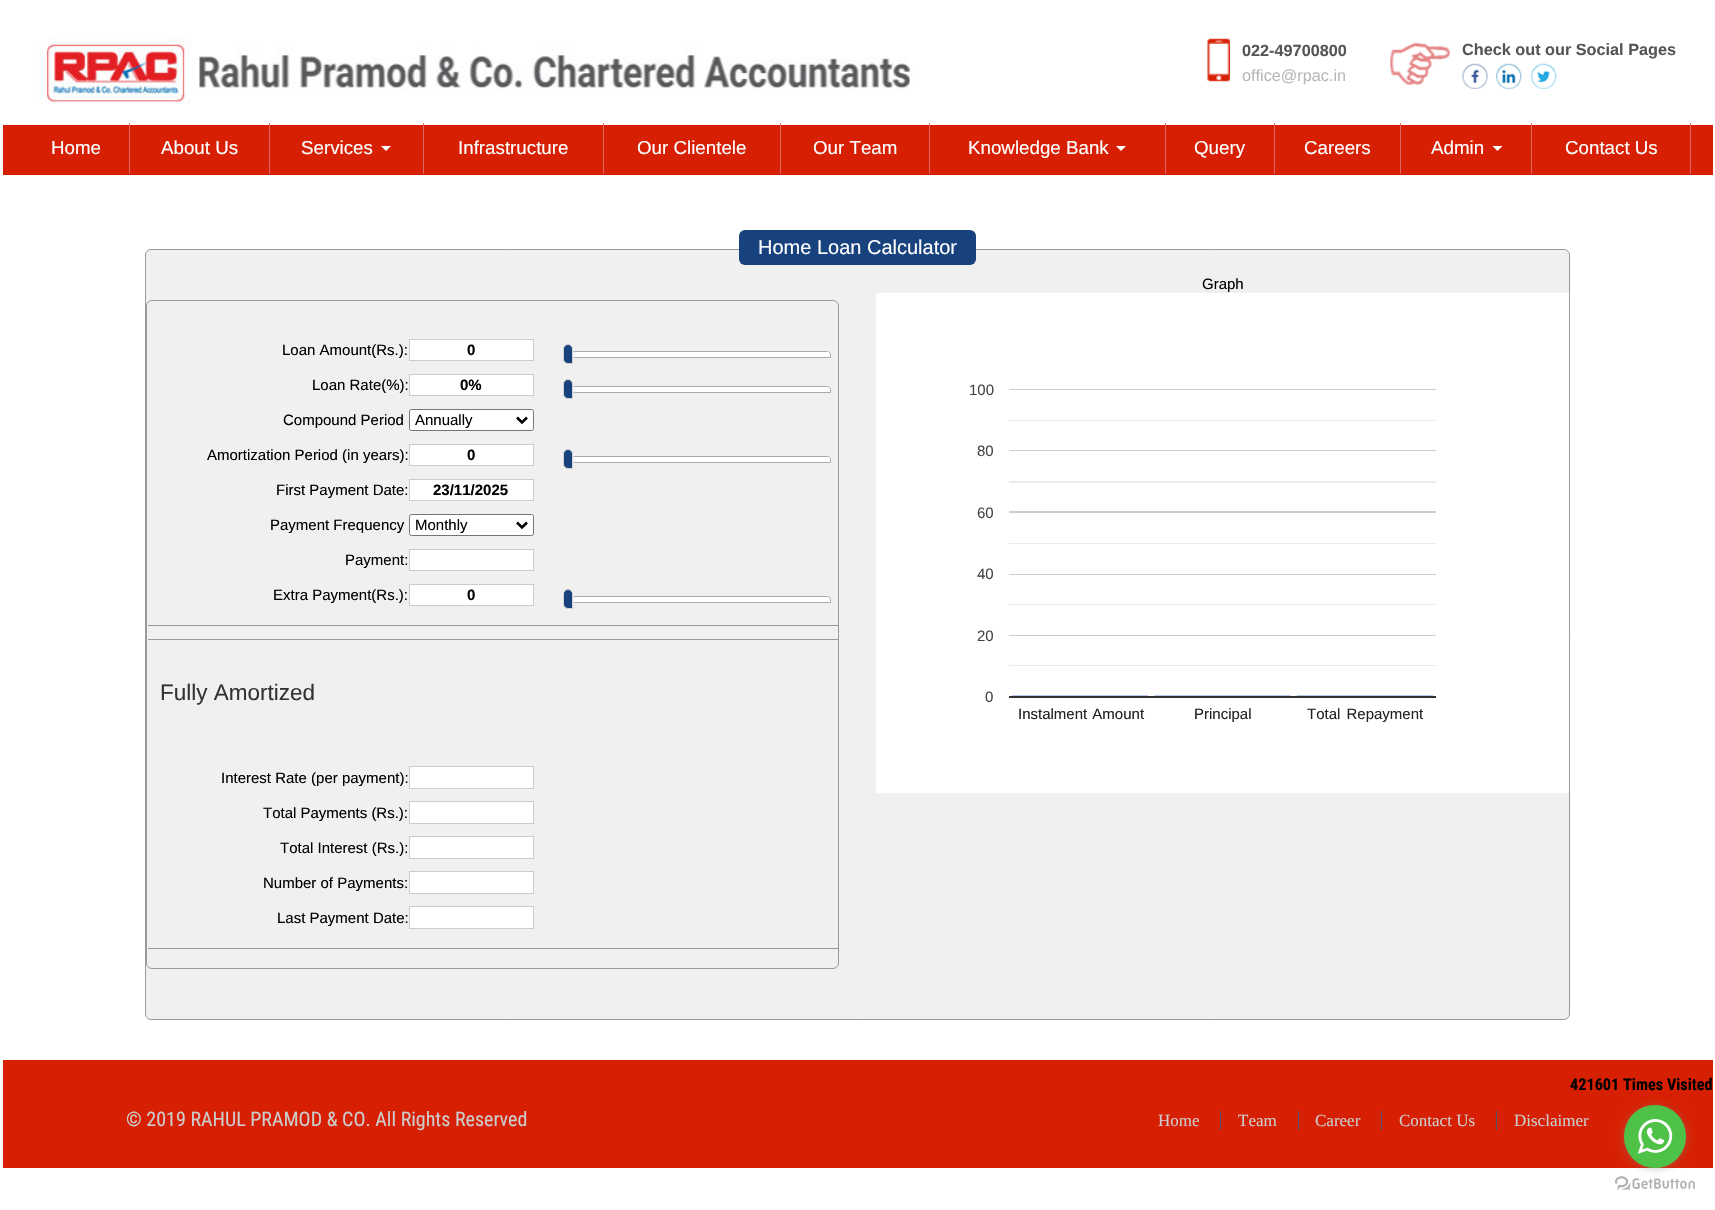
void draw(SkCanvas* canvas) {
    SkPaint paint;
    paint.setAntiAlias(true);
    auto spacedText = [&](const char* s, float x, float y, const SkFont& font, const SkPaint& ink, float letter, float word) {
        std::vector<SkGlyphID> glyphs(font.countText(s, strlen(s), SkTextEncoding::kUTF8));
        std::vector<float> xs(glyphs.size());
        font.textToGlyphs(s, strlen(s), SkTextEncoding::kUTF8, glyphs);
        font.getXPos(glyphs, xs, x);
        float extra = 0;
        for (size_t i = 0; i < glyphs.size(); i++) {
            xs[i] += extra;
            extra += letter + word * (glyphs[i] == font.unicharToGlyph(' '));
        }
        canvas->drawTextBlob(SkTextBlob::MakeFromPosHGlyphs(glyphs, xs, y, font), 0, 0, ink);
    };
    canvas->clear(0xFFFFFFFF);
    canvas->drawImageRect(SkImages::DeferredFromEncodedData(SkData::MakeFromFileName("img1.png")), SkRect::MakeXYWH(39, 38, 878, 66), SkSamplingOptions());
    canvas->drawImageRect(SkImages::DeferredFromEncodedData(SkData::MakeFromFileName("img2.png")), SkRect::MakeXYWH(1207, 38, 23, 44), SkSamplingOptions());
    SkFont font1(fontMgr->matchFamilyStyle("Liberation Sans", SkFontStyle::Bold()), 16.25f);
    font1.setSubpixel(true);
    paint.setColor(0xFF555555);
    canvas->drawString("022-49700800", 1242, 56, font1, paint);
    SkFont font2(fontMgr->matchFamilyStyle("Liberation Sans", SkFontStyle::Normal()), 16.25f);
    font2.setSubpixel(true);
    paint.setColor(0xFFB7B7B7);
    canvas->drawString("office@rpac.in", 1242, 81, font2, paint);
    canvas->drawImageRect(SkImages::DeferredFromEncodedData(SkData::MakeFromFileName("img3.png")), SkRect::MakeXYWH(1390, 42, 60, 43), SkSamplingOptions());
    paint.setColor(0xFF555555);
    canvas->drawString("Check out our Social Pages", 1462, 55, font1, paint);
    canvas->drawImageRect(SkImages::DeferredFromEncodedData(SkData::MakeFromFileName("img4.png")), SkRect::MakeXYWH(1462, 63, 26, 26), SkSamplingOptions());
    canvas->drawImageRect(SkImages::DeferredFromEncodedData(SkData::MakeFromFileName("img5.png")), SkRect::MakeXYWH(1496, 63, 26, 26), SkSamplingOptions());
    canvas->drawImageRect(SkImages::DeferredFromEncodedData(SkData::MakeFromFileName("img6.png")), SkRect::MakeXYWH(1531, 63, 26, 26), SkSamplingOptions());
    paint.setColor(0xFFD72003);
    canvas->drawRect(SkRect::MakeXYWH(3, 125, 1710, 50), paint);
    paint.setColor(0xFFDD6464);
    canvas->drawRect(SkRect::MakeXYWH(129, 123, 1, 51), paint);
    SkFont font3(fontMgr->matchFamilyStyle("Liberation Sans", SkFontStyle::Normal()), 18.75f);
    font3.setSubpixel(true);
    paint.setColor(0xFFFFFFFF);
    canvas->drawString("Home", 51, 154, font3, paint);
    paint.setColor(0xFFDD6464);
    canvas->drawRect(SkRect::MakeXYWH(269, 123, 1, 51), paint);
    paint.setColor(0xFFFFFFFF);
    canvas->drawString("About Us", 161, 154, font3, paint);
    paint.setColor(0xFFDD6464);
    canvas->drawRect(SkRect::MakeXYWH(423, 123, 1, 51), paint);
    paint.setColor(0xFFFFFFFF);
    canvas->drawString("Services", 301, 154, font3, paint);
    canvas->drawPath(SkPathBuilder().moveTo(381, 146).lineTo(391, 146).lineTo(386, 151).close().detach(), paint);
    paint.setColor(0xFFDD6464);
    canvas->drawRect(SkRect::MakeXYWH(603, 123, 1, 51), paint);
    paint.setColor(0xFFFFFFFF);
    canvas->drawString("Infrastructure", 458, 154, font3, paint);
    paint.setColor(0xFFDD6464);
    canvas->drawRect(SkRect::MakeXYWH(780, 123, 1, 51), paint);
    paint.setColor(0xFFFFFFFF);
    canvas->drawString("Our Clientele", 637, 154, font3, paint);
    paint.setColor(0xFFDD6464);
    canvas->drawRect(SkRect::MakeXYWH(929, 123, 1, 51), paint);
    paint.setColor(0xFFFFFFFF);
    canvas->drawString("Our Team", 813, 154, font3, paint);
    paint.setColor(0xFFDD6464);
    canvas->drawRect(SkRect::MakeXYWH(1165, 123, 1, 51), paint);
    paint.setColor(0xFFFFFFFF);
    canvas->drawString("Knowledge Bank", 968, 154, font3, paint);
    canvas->drawPath(SkPathBuilder().moveTo(1116, 146).lineTo(1126, 146).lineTo(1121, 151).close().detach(), paint);
    paint.setColor(0xFFDD6464);
    canvas->drawRect(SkRect::MakeXYWH(1274, 123, 1, 51), paint);
    paint.setColor(0xFFFFFFFF);
    canvas->drawString("Query", 1194, 154, font3, paint);
    paint.setColor(0xFFDD6464);
    canvas->drawRect(SkRect::MakeXYWH(1400, 123, 1, 51), paint);
    paint.setColor(0xFFFFFFFF);
    canvas->drawString("Careers", 1304, 154, font3, paint);
    paint.setColor(0xFFDD6464);
    canvas->drawRect(SkRect::MakeXYWH(1531, 123, 1, 51), paint);
    paint.setColor(0xFFFFFFFF);
    canvas->drawString("Admin", 1431, 154, font3, paint);
    canvas->drawPath(SkPathBuilder().moveTo(1492.5f, 146).lineTo(1502.5f, 146).lineTo(1497.5f, 151).close().detach(), paint);
    paint.setColor(0xFFDD6464);
    canvas->drawRect(SkRect::MakeXYWH(1690, 123, 1, 51), paint);
    paint.setColor(0xFFFFFFFF);
    canvas->drawString("Contact Us", 1565, 154, font3, paint);
    paint.setColor(0xFFF0F0F0);
    canvas->drawRoundRect(SkRect::MakeXYWH(145.5f, 249.5f, 1424, 770), 5.5f, 5.5f, paint);
    paint.setStyle(SkPaint::kStroke_Style);
    paint.setStrokeWidth(1);
    paint.setColor(0xFF999999);
    canvas->drawRoundRect(SkRect::MakeXYWH(145.5f, 249.5f, 1424, 770), 5.5f, 5.5f, paint);
    paint.setStyle(SkPaint::kFill_Style);
    paint.setColor(0xFF18427D);
    canvas->drawRoundRect(SkRect::MakeXYWH(739, 230, 237, 35), 6, 6, paint);
    SkFont font4(fontMgr->matchFamilyStyle("Liberation Sans", SkFontStyle::Normal()), 20);
    font4.setSubpixel(true);
    paint.setColor(0xFFFFFFFF);
    canvas->drawString("Home Loan Calculator", 758, 254, font4, paint);
    paint.setStyle(SkPaint::kStroke_Style);
    paint.setColor(0xFF999999);
    canvas->drawRoundRect(SkRect::MakeXYWH(146.5f, 300.5f, 692, 668), 5.5f, 5.5f, paint);
    paint.setStyle(SkPaint::kFill_Style);
    canvas->drawRect(SkRect::MakeXYWH(148, 639, 690, 1), paint);
    canvas->drawRect(SkRect::MakeXYWH(148, 625, 690, 1), paint);
    SkFont font5(fontMgr->matchFamilyStyle("Liberation Sans", SkFontStyle::Normal()), 15);
    font5.setSubpixel(true);
    paint.setColor(0xFF000000);
    canvas->drawString("Loan Amount(Rs.):", 282, 355, font5, paint);
    paint.setColor(0xFFFFFFFF);
    canvas->drawRect(SkRect::MakeXYWH(409.5f, 339.5f, 124, 21), paint);
    paint.setStyle(SkPaint::kStroke_Style);
    paint.setColor(0xFFCCCCCC);
    canvas->drawRect(SkRect::MakeXYWH(409.5f, 339.5f, 124, 21), paint);
    SkFont font6(fontMgr->matchFamilyStyle("Liberation Sans", SkFontStyle::Bold()), 15);
    font6.setSubpixel(true);
    paint.setStyle(SkPaint::kFill_Style);
    paint.setColor(0xFF000000);
    canvas->drawString("0", 467, 355, font6, paint);
    paint.setColor(0xFFFFFFFF);
    canvas->drawPath(SkPathBuilder().moveTo(574.5f, 351.5f).lineTo(827.5f, 351.5f).cubicTo(829, 351.5f, 830.5f, 353, 830.5f, 354.5f).lineTo(830.5f, 357.5f).lineTo(574.5f, 357.5f).cubicTo(573, 357.5f, 571.5f, 356, 571.5f, 354.5f).cubicTo(571.5f, 353, 573, 351.5f, 574.5f, 351.5f).close().detach(), paint);
    paint.setStyle(SkPaint::kStroke_Style);
    paint.setColor(0xFFAAAAAA);
    canvas->drawPath(SkPathBuilder().moveTo(574.5f, 351.5f).lineTo(827.5f, 351.5f).cubicTo(829, 351.5f, 830.5f, 353, 830.5f, 354.5f).lineTo(830.5f, 357.5f).lineTo(574.5f, 357.5f).cubicTo(573, 357.5f, 571.5f, 356, 571.5f, 354.5f).cubicTo(571.5f, 353, 573, 351.5f, 574.5f, 351.5f).close().detach(), paint);
    paint.setStyle(SkPaint::kFill_Style);
    paint.setColor(0xFF18427D);
    canvas->drawPath(SkPathBuilder().moveTo(568, 344.5f).cubicTo(570.5f, 344.5f, 572.5f, 346.5f, 572.5f, 349).lineTo(572.5f, 363.5f).lineTo(568, 363.5f).cubicTo(565.5f, 363.5f, 563.5f, 361.5f, 563.5f, 359).lineTo(563.5f, 349).cubicTo(563.5f, 346.5f, 565.5f, 344.5f, 568, 344.5f).close().detach(), paint);
    paint.setStyle(SkPaint::kStroke_Style);
    paint.setColor(0xFFD3D3D3);
    canvas->drawPath(SkPathBuilder().moveTo(568, 344.5f).cubicTo(570.5f, 344.5f, 572.5f, 346.5f, 572.5f, 349).lineTo(572.5f, 363.5f).lineTo(568, 363.5f).cubicTo(565.5f, 363.5f, 563.5f, 361.5f, 563.5f, 359).lineTo(563.5f, 349).cubicTo(563.5f, 346.5f, 565.5f, 344.5f, 568, 344.5f).close().detach(), paint);
    paint.setStyle(SkPaint::kFill_Style);
    paint.setColor(0xFF000000);
    canvas->drawString("Loan Rate(%):", 312, 390, font5, paint);
    paint.setColor(0xFFFFFFFF);
    canvas->drawRect(SkRect::MakeXYWH(409.5f, 374.5f, 124, 21), paint);
    paint.setStyle(SkPaint::kStroke_Style);
    paint.setColor(0xFFCCCCCC);
    canvas->drawRect(SkRect::MakeXYWH(409.5f, 374.5f, 124, 21), paint);
    paint.setStyle(SkPaint::kFill_Style);
    paint.setColor(0xFF000000);
    canvas->drawString("0%", 460, 390, font6, paint);
    paint.setColor(0xFFFFFFFF);
    canvas->drawPath(SkPathBuilder().moveTo(574.5f, 386.5f).lineTo(827.5f, 386.5f).cubicTo(829, 386.5f, 830.5f, 388, 830.5f, 389.5f).lineTo(830.5f, 392.5f).lineTo(574.5f, 392.5f).cubicTo(573, 392.5f, 571.5f, 391, 571.5f, 389.5f).cubicTo(571.5f, 388, 573, 386.5f, 574.5f, 386.5f).close().detach(), paint);
    paint.setStyle(SkPaint::kStroke_Style);
    paint.setColor(0xFFAAAAAA);
    canvas->drawPath(SkPathBuilder().moveTo(574.5f, 386.5f).lineTo(827.5f, 386.5f).cubicTo(829, 386.5f, 830.5f, 388, 830.5f, 389.5f).lineTo(830.5f, 392.5f).lineTo(574.5f, 392.5f).cubicTo(573, 392.5f, 571.5f, 391, 571.5f, 389.5f).cubicTo(571.5f, 388, 573, 386.5f, 574.5f, 386.5f).close().detach(), paint);
    paint.setStyle(SkPaint::kFill_Style);
    paint.setColor(0xFF18427D);
    canvas->drawPath(SkPathBuilder().moveTo(568, 379.5f).cubicTo(570.5f, 379.5f, 572.5f, 381.5f, 572.5f, 384).lineTo(572.5f, 398.5f).lineTo(568, 398.5f).cubicTo(565.5f, 398.5f, 563.5f, 396.5f, 563.5f, 394).lineTo(563.5f, 384).cubicTo(563.5f, 381.5f, 565.5f, 379.5f, 568, 379.5f).close().detach(), paint);
    paint.setStyle(SkPaint::kStroke_Style);
    paint.setColor(0xFFD3D3D3);
    canvas->drawPath(SkPathBuilder().moveTo(568, 379.5f).cubicTo(570.5f, 379.5f, 572.5f, 381.5f, 572.5f, 384).lineTo(572.5f, 398.5f).lineTo(568, 398.5f).cubicTo(565.5f, 398.5f, 563.5f, 396.5f, 563.5f, 394).lineTo(563.5f, 384).cubicTo(563.5f, 381.5f, 565.5f, 379.5f, 568, 379.5f).close().detach(), paint);
    paint.setStyle(SkPaint::kFill_Style);
    paint.setColor(0xFF000000);
    canvas->drawString("Compound Period", 283, 425, font5, paint);
    paint.setColor(0xFFFFFFFF);
    canvas->drawRoundRect(SkRect::MakeXYWH(409.5f, 409.5f, 124, 21), 2, 2, paint);
    paint.setStyle(SkPaint::kStroke_Style);
    paint.setColor(0xFF767676);
    canvas->drawRoundRect(SkRect::MakeXYWH(409.5f, 409.5f, 124, 21), 2, 2, paint);
    paint.setStrokeWidth(2.5f);
    paint.setColor(0xFF000000);
    canvas->drawPath(SkPathBuilder().moveTo(517, 417.5f).lineTo(522, 422.5f).lineTo(527, 417.5f).detach(), paint);
    paint.setStyle(SkPaint::kFill_Style);
    canvas->drawString("Annually", 415, 425, font5, paint);
    canvas->drawString("Amortization Period (in years):", 207, 460, font5, paint);
    paint.setColor(0xFFFFFFFF);
    canvas->drawRect(SkRect::MakeXYWH(409.5f, 444.5f, 124, 21), paint);
    paint.setStyle(SkPaint::kStroke_Style);
    paint.setStrokeWidth(1);
    paint.setColor(0xFFCCCCCC);
    canvas->drawRect(SkRect::MakeXYWH(409.5f, 444.5f, 124, 21), paint);
    paint.setStyle(SkPaint::kFill_Style);
    paint.setColor(0xFF000000);
    canvas->drawString("0", 467, 460, font6, paint);
    paint.setColor(0xFFFFFFFF);
    canvas->drawPath(SkPathBuilder().moveTo(574.5f, 456.5f).lineTo(827.5f, 456.5f).cubicTo(829, 456.5f, 830.5f, 458, 830.5f, 459.5f).lineTo(830.5f, 462.5f).lineTo(574.5f, 462.5f).cubicTo(573, 462.5f, 571.5f, 461, 571.5f, 459.5f).cubicTo(571.5f, 458, 573, 456.5f, 574.5f, 456.5f).close().detach(), paint);
    paint.setStyle(SkPaint::kStroke_Style);
    paint.setColor(0xFFAAAAAA);
    canvas->drawPath(SkPathBuilder().moveTo(574.5f, 456.5f).lineTo(827.5f, 456.5f).cubicTo(829, 456.5f, 830.5f, 458, 830.5f, 459.5f).lineTo(830.5f, 462.5f).lineTo(574.5f, 462.5f).cubicTo(573, 462.5f, 571.5f, 461, 571.5f, 459.5f).cubicTo(571.5f, 458, 573, 456.5f, 574.5f, 456.5f).close().detach(), paint);
    paint.setStyle(SkPaint::kFill_Style);
    paint.setColor(0xFF18427D);
    canvas->drawPath(SkPathBuilder().moveTo(568, 449.5f).cubicTo(570.5f, 449.5f, 572.5f, 451.5f, 572.5f, 454).lineTo(572.5f, 468.5f).lineTo(568, 468.5f).cubicTo(565.5f, 468.5f, 563.5f, 466.5f, 563.5f, 464).lineTo(563.5f, 454).cubicTo(563.5f, 451.5f, 565.5f, 449.5f, 568, 449.5f).close().detach(), paint);
    paint.setStyle(SkPaint::kStroke_Style);
    paint.setColor(0xFFD3D3D3);
    canvas->drawPath(SkPathBuilder().moveTo(568, 449.5f).cubicTo(570.5f, 449.5f, 572.5f, 451.5f, 572.5f, 454).lineTo(572.5f, 468.5f).lineTo(568, 468.5f).cubicTo(565.5f, 468.5f, 563.5f, 466.5f, 563.5f, 464).lineTo(563.5f, 454).cubicTo(563.5f, 451.5f, 565.5f, 449.5f, 568, 449.5f).close().detach(), paint);
    paint.setStyle(SkPaint::kFill_Style);
    paint.setColor(0xFF000000);
    canvas->drawString("First Payment Date:", 276, 495, font5, paint);
    paint.setColor(0xFFFFFFFF);
    canvas->drawRect(SkRect::MakeXYWH(409.5f, 479.5f, 124, 21), paint);
    paint.setStyle(SkPaint::kStroke_Style);
    paint.setColor(0xFFCCCCCC);
    canvas->drawRect(SkRect::MakeXYWH(409.5f, 479.5f, 124, 21), paint);
    paint.setStyle(SkPaint::kFill_Style);
    paint.setColor(0xFF000000);
    canvas->drawString("23/11/2025", 433, 495, font6, paint);
    canvas->drawString("Payment Frequency", 270, 530, font5, paint);
    paint.setColor(0xFFFFFFFF);
    canvas->drawRoundRect(SkRect::MakeXYWH(409.5f, 514.5f, 124, 21), 2, 2, paint);
    paint.setStyle(SkPaint::kStroke_Style);
    paint.setColor(0xFF767676);
    canvas->drawRoundRect(SkRect::MakeXYWH(409.5f, 514.5f, 124, 21), 2, 2, paint);
    paint.setStrokeWidth(2.5f);
    paint.setColor(0xFF000000);
    canvas->drawPath(SkPathBuilder().moveTo(517, 522.5f).lineTo(522, 527.5f).lineTo(527, 522.5f).detach(), paint);
    paint.setStyle(SkPaint::kFill_Style);
    canvas->drawString("Monthly", 415, 530, font5, paint);
    canvas->drawString("Payment:", 345, 565, font5, paint);
    paint.setColor(0xFFFFFFFF);
    canvas->drawRect(SkRect::MakeXYWH(409.5f, 549.5f, 124, 21), paint);
    paint.setStyle(SkPaint::kStroke_Style);
    paint.setStrokeWidth(1);
    paint.setColor(0xFFCCCCCC);
    canvas->drawRect(SkRect::MakeXYWH(409.5f, 549.5f, 124, 21), paint);
    paint.setStyle(SkPaint::kFill_Style);
    paint.setColor(0xFF000000);
    canvas->drawString("Extra Payment(Rs.):", 273, 600, font5, paint);
    paint.setColor(0xFFFFFFFF);
    canvas->drawRect(SkRect::MakeXYWH(409.5f, 584.5f, 124, 21), paint);
    paint.setStyle(SkPaint::kStroke_Style);
    paint.setColor(0xFFCCCCCC);
    canvas->drawRect(SkRect::MakeXYWH(409.5f, 584.5f, 124, 21), paint);
    paint.setStyle(SkPaint::kFill_Style);
    paint.setColor(0xFF000000);
    canvas->drawString("0", 467, 600, font6, paint);
    paint.setColor(0xFFFFFFFF);
    canvas->drawPath(SkPathBuilder().moveTo(574.5f, 596.5f).lineTo(827.5f, 596.5f).cubicTo(829, 596.5f, 830.5f, 598, 830.5f, 599.5f).lineTo(830.5f, 602.5f).lineTo(574.5f, 602.5f).cubicTo(573, 602.5f, 571.5f, 601, 571.5f, 599.5f).cubicTo(571.5f, 598, 573, 596.5f, 574.5f, 596.5f).close().detach(), paint);
    paint.setStyle(SkPaint::kStroke_Style);
    paint.setColor(0xFFAAAAAA);
    canvas->drawPath(SkPathBuilder().moveTo(574.5f, 596.5f).lineTo(827.5f, 596.5f).cubicTo(829, 596.5f, 830.5f, 598, 830.5f, 599.5f).lineTo(830.5f, 602.5f).lineTo(574.5f, 602.5f).cubicTo(573, 602.5f, 571.5f, 601, 571.5f, 599.5f).cubicTo(571.5f, 598, 573, 596.5f, 574.5f, 596.5f).close().detach(), paint);
    paint.setStyle(SkPaint::kFill_Style);
    paint.setColor(0xFF18427D);
    canvas->drawPath(SkPathBuilder().moveTo(568, 589.5f).cubicTo(570.5f, 589.5f, 572.5f, 591.5f, 572.5f, 594).lineTo(572.5f, 608.5f).lineTo(568, 608.5f).cubicTo(565.5f, 608.5f, 563.5f, 606.5f, 563.5f, 604).lineTo(563.5f, 594).cubicTo(563.5f, 591.5f, 565.5f, 589.5f, 568, 589.5f).close().detach(), paint);
    paint.setStyle(SkPaint::kStroke_Style);
    paint.setColor(0xFFD3D3D3);
    canvas->drawPath(SkPathBuilder().moveTo(568, 589.5f).cubicTo(570.5f, 589.5f, 572.5f, 591.5f, 572.5f, 594).lineTo(572.5f, 608.5f).lineTo(568, 608.5f).cubicTo(565.5f, 608.5f, 563.5f, 606.5f, 563.5f, 604).lineTo(563.5f, 594).cubicTo(563.5f, 591.5f, 565.5f, 589.5f, 568, 589.5f).close().detach(), paint);
    paint.setStyle(SkPaint::kFill_Style);
    paint.setColor(0xFF999999);
    canvas->drawRect(SkRect::MakeXYWH(148, 948, 690, 1), paint);
    SkFont font7(fontMgr->matchFamilyStyle("Liberation Sans", SkFontStyle::Normal()), 22.5f);
    font7.setSubpixel(true);
    paint.setColor(0xFF333333);
    canvas->drawString("Fully Amortized", 160, 700, font7, paint);
    paint.setColor(0xFF000000);
    canvas->drawString("Interest Rate (per payment):", 221, 783, font5, paint);
    paint.setColor(0xFFFFFFFF);
    canvas->drawRect(SkRect::MakeXYWH(409.5f, 766.5f, 124, 22), paint);
    paint.setStyle(SkPaint::kStroke_Style);
    paint.setColor(0xFFCCCCCC);
    canvas->drawRect(SkRect::MakeXYWH(409.5f, 766.5f, 124, 22), paint);
    paint.setStyle(SkPaint::kFill_Style);
    paint.setColor(0xFF000000);
    canvas->drawString("Total Payments (Rs.):", 263, 818, font5, paint);
    paint.setColor(0xFFFFFFFF);
    canvas->drawRect(SkRect::MakeXYWH(409.5f, 801.5f, 124, 22), paint);
    paint.setStyle(SkPaint::kStroke_Style);
    paint.setColor(0xFFCCCCCC);
    canvas->drawRect(SkRect::MakeXYWH(409.5f, 801.5f, 124, 22), paint);
    paint.setStyle(SkPaint::kFill_Style);
    paint.setColor(0xFF000000);
    canvas->drawString("Total Interest (Rs.):", 280, 853, font5, paint);
    paint.setColor(0xFFFFFFFF);
    canvas->drawRect(SkRect::MakeXYWH(409.5f, 836.5f, 124, 22), paint);
    paint.setStyle(SkPaint::kStroke_Style);
    paint.setColor(0xFFCCCCCC);
    canvas->drawRect(SkRect::MakeXYWH(409.5f, 836.5f, 124, 22), paint);
    paint.setStyle(SkPaint::kFill_Style);
    paint.setColor(0xFF000000);
    canvas->drawString("Number of Payments:", 263, 888, font5, paint);
    paint.setColor(0xFFFFFFFF);
    canvas->drawRect(SkRect::MakeXYWH(409.5f, 871.5f, 124, 22), paint);
    paint.setStyle(SkPaint::kStroke_Style);
    paint.setColor(0xFFCCCCCC);
    canvas->drawRect(SkRect::MakeXYWH(409.5f, 871.5f, 124, 22), paint);
    paint.setStyle(SkPaint::kFill_Style);
    paint.setColor(0xFF000000);
    canvas->drawString("Last Payment Date:", 277, 923, font5, paint);
    paint.setColor(0xFFFFFFFF);
    canvas->drawRect(SkRect::MakeXYWH(409.5f, 906.5f, 124, 22), paint);
    paint.setStyle(SkPaint::kStroke_Style);
    paint.setColor(0xFFCCCCCC);
    canvas->drawRect(SkRect::MakeXYWH(409.5f, 906.5f, 124, 22), paint);
    paint.setStyle(SkPaint::kFill_Style);
    paint.setColor(0xFF000000);
    canvas->drawString("Graph", 1202, 289, font5, paint);
    canvas->drawImageRect(SkImages::DeferredFromEncodedData(SkData::MakeFromFileName("img7.png")), SkRect::MakeXYWH(876, 293, 693, 500), SkSamplingOptions());
    paint.setColor(0xFF444444);
    canvas->drawString("100", 969, 395, font5, paint);
    canvas->drawString("80", 977, 456, font5, paint);
    canvas->drawString("60", 977, 518, font5, paint);
    canvas->drawString("40", 977, 579, font5, paint);
    canvas->drawString("20", 977, 641, font5, paint);
    canvas->drawString("0", 985, 702, font5, paint);
    paint.setColor(0xFF222222);
    spacedText("Instalment Amount", 1018, 719, font5, paint, 0, 1);
    canvas->drawString("Principal", 1194, 719, font5, paint);
    spacedText("Total Repayment", 1307, 719, font5, paint, 0, 2);
    paint.setColor(0xFFD72003);
    canvas->drawRect(SkRect::MakeXYWH(3, 1060, 1710, 108), paint);
    SkFont font8(fontMgr->matchFamilyStyle("Roboto Condensed", SkFontStyle::Bold()), 16.25f);
    font8.setSubpixel(true);
    paint.setColor(0xFF000000);
    canvas->drawString("421601 Times Visited", 1570, 1090, font8, paint);
    SkFont font9(fontMgr->matchFamilyStyle("Roboto Condensed", SkFontStyle::Normal()), 20);
    font9.setSubpixel(true);
    paint.setColor(0xFFCCCCCC);
    canvas->drawString("© 2019 RAHUL PRAMOD & CO. All Rights Reserved", 126, 1126, font9, paint);
    SkFont font10(fontMgr->matchFamilyStyle("Liberation Serif", SkFontStyle::Normal()), 17);
    font10.setSubpixel(true);
    canvas->drawString("Home", 1158, 1126, font10, paint);
    canvas->drawString("Team", 1238, 1126, font10, paint);
    paint.setColor(0xFF4E5463);
    canvas->drawRect(SkRect::MakeXYWH(1220, 1111, 1, 19), paint);
    paint.setColor(0xFFCCCCCC);
    canvas->drawString("Career", 1315, 1126, font10, paint);
    paint.setColor(0xFF4E5463);
    canvas->drawRect(SkRect::MakeXYWH(1298, 1111, 1, 19), paint);
    paint.setColor(0xFFCCCCCC);
    canvas->drawString("Contact Us", 1399, 1126, font10, paint);
    paint.setColor(0xFF4E5463);
    canvas->drawRect(SkRect::MakeXYWH(1381, 1111, 1, 19), paint);
    paint.setColor(0xFFCCCCCC);
    canvas->drawString("Disclaimer", 1514, 1126, font10, paint);
    paint.setColor(0xFF4E5463);
    canvas->drawRect(SkRect::MakeXYWH(1496, 1111, 1, 19), paint);
    canvas->drawImageRect(SkImages::DeferredFromEncodedData(SkData::MakeFromFileName("img9.png")), SkRect::MakeXYWH(1615, 1176, 80, 14), SkSamplingOptions());
    paint.setColor(0x66888888);
    paint.setMaskFilter(SkMaskFilter::MakeBlur(kNormal_SkBlurStyle, 4.5f));
    canvas->drawRoundRect(SkRect::MakeXYWH(1624, 1106, 62, 63), 31, 31, paint);
    paint.setMaskFilter(nullptr);
    paint.setColor(0xFF4DC247);
    canvas->drawRoundRect(SkRect::MakeXYWH(1624, 1105, 62, 63), 31, 31, paint);
    canvas->drawImageRect(SkImages::DeferredFromEncodedData(SkData::MakeFromFileName("img8.png")), SkRect::MakeXYWH(1637, 1119, 36, 35), SkSamplingOptions());
}
